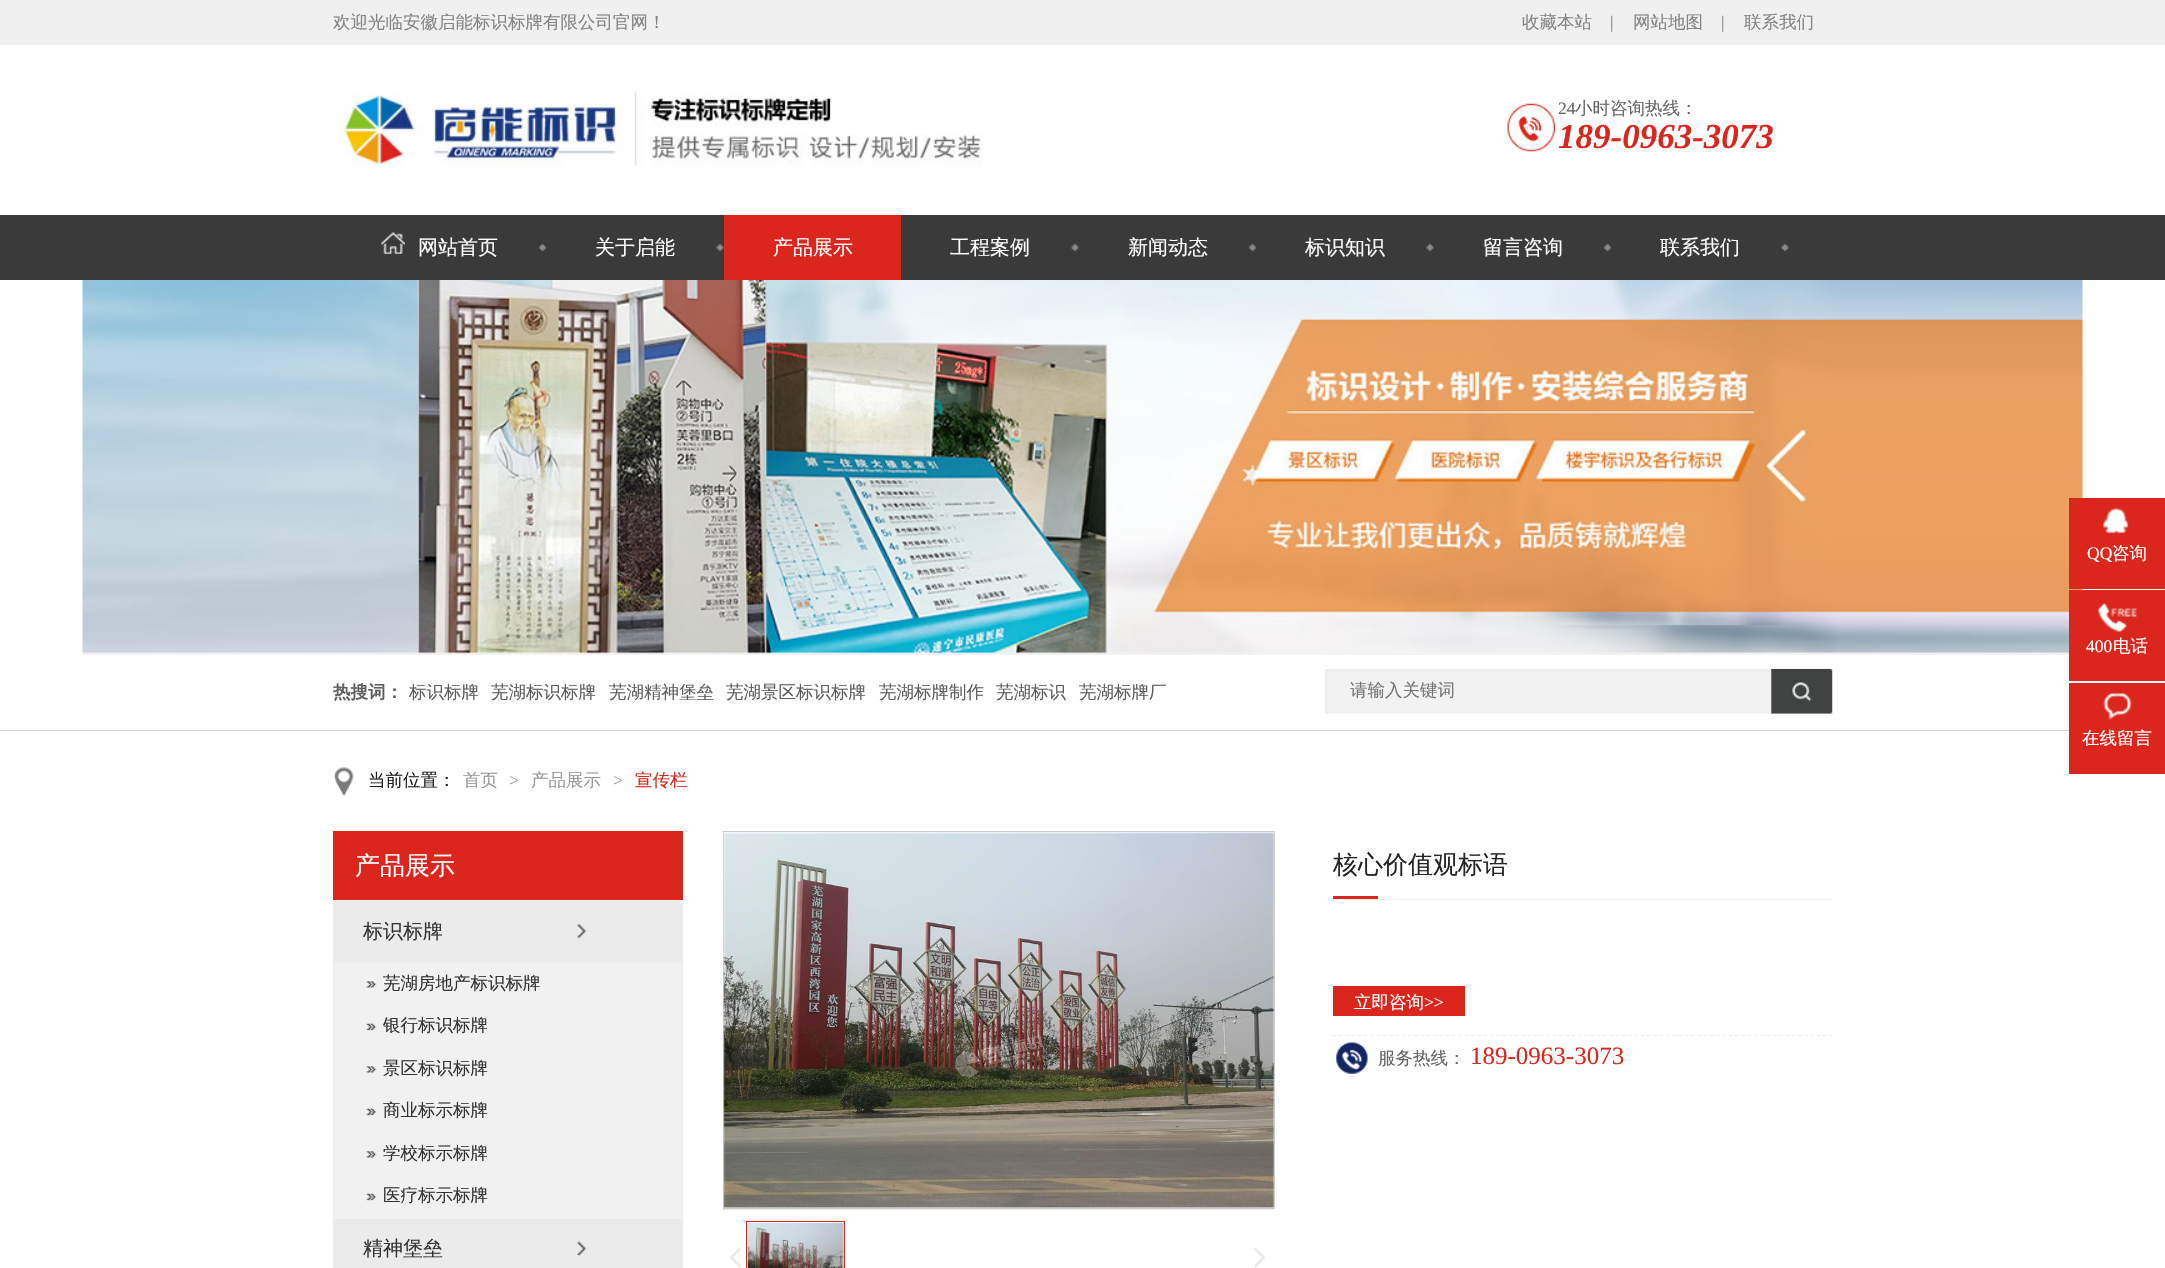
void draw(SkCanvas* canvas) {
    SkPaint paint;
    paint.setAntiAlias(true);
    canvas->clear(0xFFFFFFFF);
    paint.setColor(0xFFF0F0F0);
    canvas->drawRect(SkRect::MakeXYWH(0, 0, 2165, 45), paint);
    SkFont font1(fontMgr->matchFamilyStyle("WenQuanYi Zen Hei", SkFontStyle(500, SkFontStyle::kNormal_Width, SkFontStyle::kUpright_Slant)), 17.5f);
    font1.setSubpixel(true);
    paint.setColor(0xFF848484);
    canvas->drawString("欢迎光临安徽启能标识标牌有限公司官网！", 333, 28, font1, paint);
    canvas->drawString("收藏本站", 1522, 28, font1, paint);
    SkFont font2(fontMgr->matchFamilyStyle("Liberation Serif", SkFontStyle::Normal()), 17.5f);
    font2.setSubpixel(true);
    canvas->drawString("|", 1610, 28, font2, paint);
    canvas->drawString("网站地图", 1633, 28, font1, paint);
    canvas->drawString("|", 1721, 28, font2, paint);
    canvas->drawString("联系我们", 1744, 28, font1, paint);
    canvas->drawImageRect(SkImages::DeferredFromEncodedData(SkData::MakeFromFileName("img1.png")), SkRect::MakeXYWH(342, 89, 640, 76), SkSamplingOptions());
    canvas->drawImageRect(SkImages::DeferredFromEncodedData(SkData::MakeFromFileName("img2.png")), SkRect::MakeXYWH(1507, 103, 48, 49), SkSamplingOptions());
    paint.setColor(0xFF666666);
    canvas->drawString("24", 1558, 114, font2, paint);
    canvas->drawString("小时咨询热线：", 1575, 114, font1, paint);
    SkFont font3(fontMgr->matchFamilyStyle("Liberation Serif", SkFontStyle::BoldItalic()), 35);
    font3.setSubpixel(true);
    paint.setColor(0xFFDB261D);
    canvas->drawString("189-0963-3073", 1558, 148, font3, paint);
    paint.setColor(0xFF3A3A3A);
    canvas->drawRect(SkRect::MakeXYWH(0, 215, 2165, 65), paint);
    canvas->drawImageRect(SkImages::DeferredFromEncodedData(SkData::MakeFromFileName("img3.png")), SkRect::MakeXYWH(538, 243, 9, 9), SkSamplingOptions());
    canvas->drawImageRect(SkImages::DeferredFromEncodedData(SkData::MakeFromFileName("img4.png")), SkRect::MakeXYWH(381, 232, 24, 22), SkSamplingOptions());
    SkFont font4(fontMgr->matchFamilyStyle("WenQuanYi Zen Hei", SkFontStyle(500, SkFontStyle::kNormal_Width, SkFontStyle::kUpright_Slant)), 20);
    font4.setSubpixel(true);
    paint.setColor(0xFFFFFFFF);
    canvas->drawString("网站首页", 418, 254, font4, paint);
    canvas->drawImageRect(SkImages::DeferredFromEncodedData(SkData::MakeFromFileName("img5.png")), SkRect::MakeXYWH(716, 243, 8, 9), SkSamplingOptions());
    canvas->drawString("关于启能", 595, 254, font4, paint);
    paint.setColor(0xFFDB261D);
    canvas->drawRect(SkRect::MakeXYWH(724, 215, 177, 65), paint);
    paint.setColor(0xFFFFFFFF);
    canvas->drawString("产品展示", 773, 254, font4, paint);
    canvas->drawImageRect(SkImages::DeferredFromEncodedData(SkData::MakeFromFileName("img5.png")), SkRect::MakeXYWH(1071, 243, 8, 9), SkSamplingOptions());
    canvas->drawString("工程案例", 950, 254, font4, paint);
    canvas->drawImageRect(SkImages::DeferredFromEncodedData(SkData::MakeFromFileName("img3.png")), SkRect::MakeXYWH(1248, 243, 9, 9), SkSamplingOptions());
    canvas->drawString("新闻动态", 1128, 254, font4, paint);
    canvas->drawImageRect(SkImages::DeferredFromEncodedData(SkData::MakeFromFileName("img5.png")), SkRect::MakeXYWH(1426, 243, 8, 9), SkSamplingOptions());
    canvas->drawString("标识知识", 1305, 254, font4, paint);
    canvas->drawImageRect(SkImages::DeferredFromEncodedData(SkData::MakeFromFileName("img3.png")), SkRect::MakeXYWH(1603, 243, 9, 9), SkSamplingOptions());
    canvas->drawString("留言咨询", 1483, 254, font4, paint);
    canvas->drawImageRect(SkImages::DeferredFromEncodedData(SkData::MakeFromFileName("img5.png")), SkRect::MakeXYWH(1781, 243, 8, 9), SkSamplingOptions());
    canvas->drawString("联系我们", 1660, 254, font4, paint);
    canvas->drawImageRect(SkImages::DeferredFromEncodedData(SkData::MakeFromFileName("img6.png")), SkRect::MakeXYWH(82, 280, 2001, 375), SkSamplingOptions());
    paint.setColor(0xFFDB261D);
    canvas->drawRect(SkRect::MakeXYWH(2069, 498, 96, 91), paint);
    canvas->drawImageRect(SkImages::DeferredFromEncodedData(SkData::MakeFromFileName("img7.png")), SkRect::MakeXYWH(2103, 508, 26, 26), SkSamplingOptions());
    paint.setColor(0xFFFFFFFF);
    canvas->drawString("QQ", 2087, 559, font2, paint);
    canvas->drawString("咨询", 2112, 559, font1, paint);
    paint.setColor(0xFFDB261D);
    canvas->drawRect(SkRect::MakeXYWH(2069, 590, 96, 91), paint);
    canvas->drawImageRect(SkImages::DeferredFromEncodedData(SkData::MakeFromFileName("img8.png")), SkRect::MakeXYWH(2098, 603, 39, 29), SkSamplingOptions());
    paint.setColor(0xFFFFFFFF);
    canvas->drawString("400", 2086, 652, font2, paint);
    canvas->drawString("电话", 2113, 652, font1, paint);
    paint.setColor(0xFFDB261D);
    canvas->drawRect(SkRect::MakeXYWH(2069, 683, 96, 91), paint);
    canvas->drawImageRect(SkImages::DeferredFromEncodedData(SkData::MakeFromFileName("img9.png")), SkRect::MakeXYWH(2103, 693, 29, 27), SkSamplingOptions());
    paint.setColor(0xFFFFFFFF);
    canvas->drawString("在线留言", 2082, 744, font1, paint);
    paint.setColor(0xFFD6D6D6);
    canvas->drawRect(SkRect::MakeXYWH(0, 730, 2069, 1), paint);
    SkFont font5(fontMgr->matchFamilyStyle("WenQuanYi Zen Hei", SkFontStyle::Bold()), 17.5f);
    font5.setSubpixel(true);
    paint.setColor(0xFF5E5E5E);
    canvas->drawString("热搜词：", 333, 698, font5, paint);
    canvas->drawString("标识标牌", 409, 698, font1, paint);
    canvas->drawString("芜湖标识标牌", 491, 698, font1, paint);
    canvas->drawString("芜湖精神堡垒", 609, 698, font1, paint);
    canvas->drawString("芜湖景区标识标牌", 726, 698, font1, paint);
    canvas->drawString("芜湖标牌制作", 879, 698, font1, paint);
    canvas->drawString("芜湖标识", 996, 698, font1, paint);
    canvas->drawString("芜湖标牌厂", 1079, 698, font1, paint);
    canvas->drawImageRect(SkImages::DeferredFromEncodedData(SkData::MakeFromFileName("img10.png")), SkRect::MakeXYWH(1325, 669, 447, 45), SkSamplingOptions());
    paint.setColor(0xFF757575);
    canvas->drawString("请输入关键词", 1350, 696, font1, paint);
    canvas->drawImageRect(SkImages::DeferredFromEncodedData(SkData::MakeFromFileName("img11.png")), SkRect::MakeXYWH(1771, 668, 62, 46), SkSamplingOptions());
    canvas->drawImageRect(SkImages::DeferredFromEncodedData(SkData::MakeFromFileName("img12.png")), SkRect::MakeXYWH(333, 767, 21, 29), SkSamplingOptions());
    paint.setColor(0xFF1E1E1E);
    canvas->drawString("当前位置：", 368, 786, font1, paint);
    paint.setColor(0xFF999999);
    canvas->drawString("首页", 463, 786, font1, paint);
    canvas->drawString(">", 509, 786, font2, paint);
    canvas->drawString("产品展示", 531, 786, font1, paint);
    canvas->drawString(">", 613, 786, font2, paint);
    paint.setColor(0xFFDB261D);
    canvas->drawString("宣传栏", 635, 786, font1, paint);
    paint.setColor(0xFFF1F1F1);
    canvas->drawRect(SkRect::MakeXYWH(333, 963, 350, 256), paint);
    paint.setColor(0xFFDB261D);
    canvas->drawRect(SkRect::MakeXYWH(333, 831, 350, 69), paint);
    SkFont font6(fontMgr->matchFamilyStyle("WenQuanYi Zen Hei", SkFontStyle(500, SkFontStyle::kNormal_Width, SkFontStyle::kUpright_Slant)), 25);
    font6.setSubpixel(true);
    paint.setColor(0xFFFFFFFF);
    canvas->drawString("产品展示", 355, 874, font6, paint);
    paint.setColor(0xFFEBEBEB);
    canvas->drawRect(SkRect::MakeXYWH(333, 901, 350, 62), paint);
    paint.setColor(0xFFF1F1F1);
    canvas->drawRect(SkRect::MakeXYWH(333, 900, 350, 1), paint);
    paint.setColor(0xFFEEEEEE);
    canvas->drawRect(SkRect::MakeXYWH(333, 961, 350, 1), paint);
    canvas->drawImageRect(SkImages::DeferredFromEncodedData(SkData::MakeFromFileName("img13.png")), SkRect::MakeXYWH(577, 923, 10, 16), SkSamplingOptions());
    paint.setColor(0xFF333333);
    canvas->drawString("标识标牌", 363, 938, font4, paint);
    canvas->drawImageRect(SkImages::DeferredFromEncodedData(SkData::MakeFromFileName("img14.png")), SkRect::MakeXYWH(366, 981, 11, 7), SkSamplingOptions());
    canvas->drawString("芜湖房地产标识标牌", 383, 989, font1, paint);
    canvas->drawImageRect(SkImages::DeferredFromEncodedData(SkData::MakeFromFileName("img15.png")), SkRect::MakeXYWH(366, 1023, 11, 8), SkSamplingOptions());
    canvas->drawString("银行标识标牌", 383, 1031, font1, paint);
    canvas->drawImageRect(SkImages::DeferredFromEncodedData(SkData::MakeFromFileName("img14.png")), SkRect::MakeXYWH(366, 1066, 11, 7), SkSamplingOptions());
    canvas->drawString("景区标识标牌", 383, 1074, font1, paint);
    canvas->drawImageRect(SkImages::DeferredFromEncodedData(SkData::MakeFromFileName("img15.png")), SkRect::MakeXYWH(366, 1108, 11, 8), SkSamplingOptions());
    canvas->drawString("商业标示标牌", 383, 1116, font1, paint);
    canvas->drawImageRect(SkImages::DeferredFromEncodedData(SkData::MakeFromFileName("img14.png")), SkRect::MakeXYWH(366, 1151, 11, 7), SkSamplingOptions());
    canvas->drawString("学校标示标牌", 383, 1159, font1, paint);
    canvas->drawImageRect(SkImages::DeferredFromEncodedData(SkData::MakeFromFileName("img16.png")), SkRect::MakeXYWH(366, 1193, 11, 8), SkSamplingOptions());
    canvas->drawString("医疗标示标牌", 383, 1201, font1, paint);
    paint.setColor(0xFFEBEBEB);
    canvas->drawRect(SkRect::MakeXYWH(333, 1219, 350, 49), paint);
    canvas->drawImageRect(SkImages::DeferredFromEncodedData(SkData::MakeFromFileName("img17.png")), SkRect::MakeXYWH(577, 1241, 10, 15), SkSamplingOptions());
    paint.setColor(0xFF333333);
    canvas->drawString("精神堡垒", 363, 1255, font4, paint);
    paint.setStyle(SkPaint::kStroke_Style);
    paint.setStrokeWidth(1);
    paint.setColor(0xFFCCCCCC);
    canvas->drawRect(SkRect::MakeXYWH(723.5f, 831.5f, 551, 377), paint);
    canvas->drawImageRect(SkImages::DeferredFromEncodedData(SkData::MakeFromFileName("img18.png")), SkRect::MakeXYWH(723, 832, 551, 376), SkSamplingOptions());
    paint.setStyle(SkPaint::kFill_Style);
    paint.setColor(0xFFE8E8E8);
    canvas->drawRect(SkRect::MakeXYWH(723, 1209, 550, 1), paint);
    canvas->drawImageRect(SkImages::DeferredFromEncodedData(SkData::MakeFromFileName("img19.png")), SkRect::MakeXYWH(730, 1247, 12, 21), SkSamplingOptions());
    paint.setStyle(SkPaint::kStroke_Style);
    paint.setColor(0xFFDB261D);
    canvas->drawRect(SkRect::MakeXYWH(746.5f, 1221.5f, 98, 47), paint);
    canvas->drawImageRect(SkImages::DeferredFromEncodedData(SkData::MakeFromFileName("img20.png")), SkRect::MakeXYWH(747, 1222, 97, 46), SkSamplingOptions());
    canvas->drawImageRect(SkImages::DeferredFromEncodedData(SkData::MakeFromFileName("img21.png")), SkRect::MakeXYWH(1253, 1247, 12, 21), SkSamplingOptions());
    paint.setStyle(SkPaint::kFill_Style);
    paint.setColor(0xFF242424);
    canvas->drawString("核心价值观标语", 1333, 873, font6, paint);
    paint.setColor(0xFFDB261D);
    canvas->drawRect(SkRect::MakeXYWH(1333, 896, 45, 3), paint);
    paint.setColor(0xFFEEEEEE);
    canvas->drawRect(SkRect::MakeXYWH(1333, 899, 500, 1), paint);
    paint.setColor(0xFFDB261D);
    canvas->drawRect(SkRect::MakeXYWH(1333, 986, 132, 30), paint);
    paint.setColor(0xFFFFFFFF);
    canvas->drawString("立即咨询", 1354, 1008, font1, paint);
    canvas->drawString(">>", 1424, 1008, font2, paint);
    canvas->drawImageRect(SkImages::DeferredFromEncodedData(SkData::MakeFromFileName("img22.png")), SkRect::MakeXYWH(1336, 1042, 32, 32), SkSamplingOptions());
    paint.setStyle(SkPaint::kStroke_Style);
    paint.setStrokeWidth(1.2f);
    paint.setColor(0xFFEEEEEE);
    paint.setPathEffect(SkDashPathEffect::Make({{3.75f, 2.54f}}, 0));
    canvas->drawPath(SkPathBuilder().moveTo(1332.5f, 1035.5f).lineTo(1832.5f, 1035.5f).detach(), paint);
    paint.setPathEffect(nullptr);
    paint.setStyle(SkPaint::kFill_Style);
    paint.setColor(0xFF666666);
    canvas->drawString("服务热线：", 1378, 1064, font1, paint);
    SkFont font7(fontMgr->matchFamilyStyle("Liberation Serif", SkFontStyle::Normal()), 25);
    font7.setSubpixel(true);
    paint.setColor(0xFFDB261D);
    canvas->drawString("189-0963-3073", 1470, 1064, font7, paint);
}
